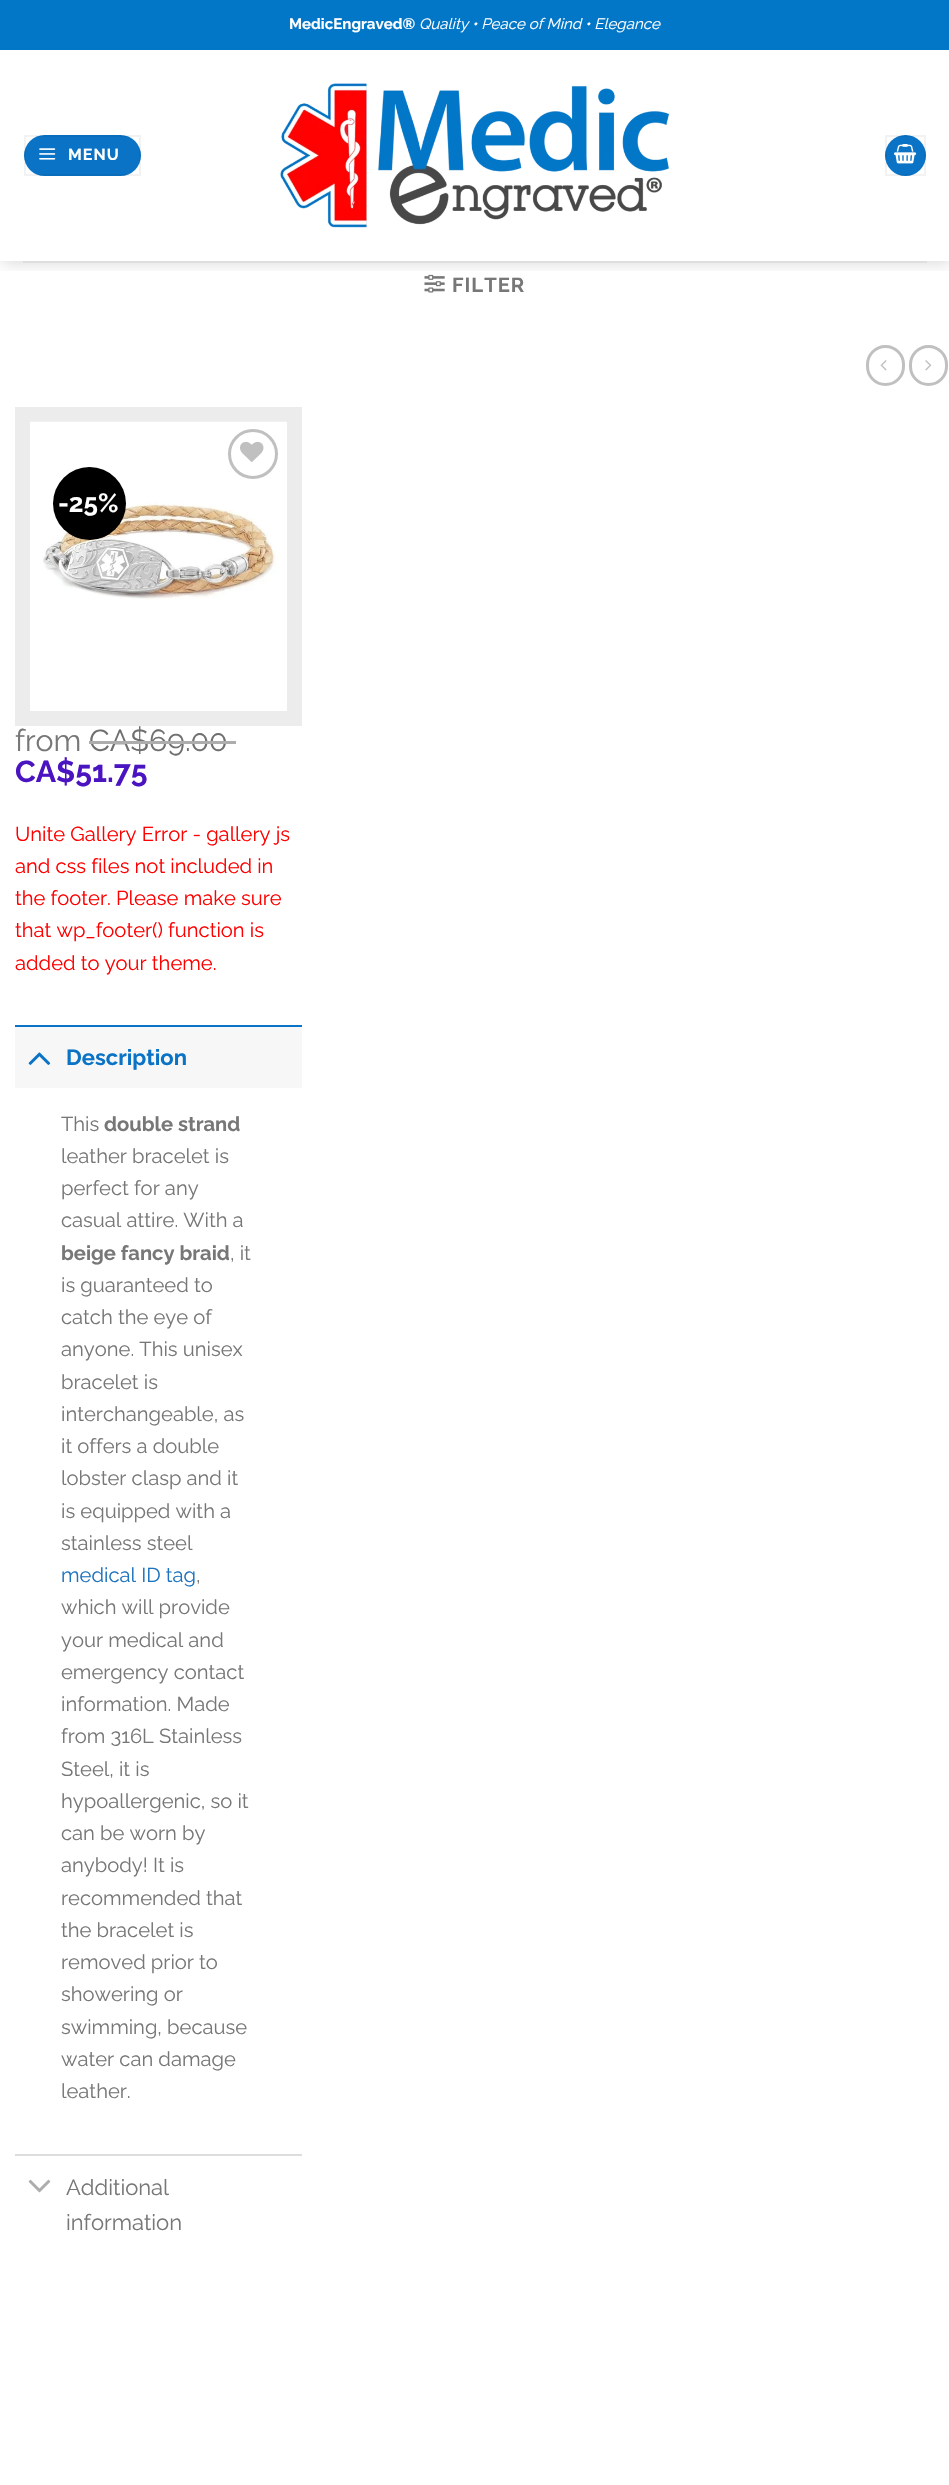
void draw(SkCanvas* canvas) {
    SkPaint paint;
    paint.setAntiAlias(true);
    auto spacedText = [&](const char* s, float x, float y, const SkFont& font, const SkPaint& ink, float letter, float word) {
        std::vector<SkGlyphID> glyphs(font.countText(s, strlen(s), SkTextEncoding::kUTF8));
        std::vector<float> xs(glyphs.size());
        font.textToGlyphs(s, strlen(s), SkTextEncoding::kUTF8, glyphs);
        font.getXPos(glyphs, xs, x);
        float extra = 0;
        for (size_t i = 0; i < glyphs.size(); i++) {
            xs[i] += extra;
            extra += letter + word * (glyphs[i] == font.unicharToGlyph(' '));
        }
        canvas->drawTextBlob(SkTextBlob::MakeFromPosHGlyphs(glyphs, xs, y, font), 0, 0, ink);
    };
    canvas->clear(0xFFFFFFFF);
    canvas->drawImageRect(SkImages::DeferredFromEncodedData(SkData::MakeFromFileName("img4.png")), SkRect::MakeXYWH(424, 274, 21, 19), SkSamplingOptions());
    canvas->save();
    canvas->clipRect(SkRect::MakeXYWH(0, 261, 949, 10));
    paint.setColor(0x26000000);
    paint.setMaskFilter(SkMaskFilter::MakeBlur(kNormal_SkBlurStyle, 7.5f));
    canvas->drawRect(SkRect::MakeXYWH(2, 2, 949, 261), paint);
    paint.setMaskFilter(nullptr);
    canvas->restore();
    paint.setColor(0xFF0276C7);
    canvas->drawRect(SkRect::MakeXYWH(0, 0, 949, 50), paint);
    SkFont font1(fontMgr->matchFamilyStyle("Raleway", SkFontStyle::Bold()), 15.1f);
    font1.setSubpixel(true);
    paint.setColor(0xFFFFFFFF);
    canvas->drawString("MedicEngraved®", 289, 29, font1, paint);
    SkFont font2(fontMgr->matchFamilyStyle("Raleway", SkFontStyle::Italic()), 15.1f);
    font2.setSubpixel(true);
    canvas->drawString("Quality • Peace of Mind • Elegance", 419, 29, font2, paint);
    paint.setColor(0xFF0A73C6);
    canvas->drawRoundRect(SkRect::MakeXYWH(24, 135, 117, 41), 20.5f, 20.5f, paint);
    paint.setStyle(SkPaint::kStroke_Style);
    paint.setStrokeWidth(2);
    paint.setColor(0x0D000000);
    canvas->drawRect(SkRect::MakeXYWH(25, 136, 115, 39), paint);
    canvas->drawImageRect(SkImages::DeferredFromEncodedData(SkData::MakeFromFileName("img1.png")), SkRect::MakeXYWH(39, 148, 17, 12), SkSamplingOptions());
    SkFont font3(fontMgr->matchFamilyStyle("Raleway", SkFontStyle::Bold()), 16);
    font3.setSubpixel(true);
    paint.setStyle(SkPaint::kFill_Style);
    paint.setColor(0xFFFFFFFF);
    spacedText("MENU", 68, 160, font3, paint, 1, 0);
    canvas->drawImageRect(SkImages::DeferredFromEncodedData(SkData::MakeFromFileName("img2.png")), SkRect::MakeXYWH(280, 83, 390, 145), SkSamplingOptions());
    paint.setColor(0xFF0A73C6);
    canvas->drawCircle(905.5f, 155.5f, 20.5f, paint);
    paint.setStyle(SkPaint::kStroke_Style);
    paint.setColor(0x0D000000);
    canvas->drawRect(SkRect::MakeXYWH(886, 136, 39, 39), paint);
    canvas->drawImageRect(SkImages::DeferredFromEncodedData(SkData::MakeFromFileName("img3.png")), SkRect::MakeXYWH(894, 144, 23, 20), SkSamplingOptions());
    paint.setStyle(SkPaint::kFill_Style);
    paint.setColor(0xFFDEDEDE);
    canvas->drawRect(SkRect::MakeXYWH(23, 261, 904, 2), paint);
    SkFont font4(fontMgr->matchFamilyStyle("Raleway", SkFontStyle::Bold()), 20.2f);
    font4.setSubpixel(true);
    paint.setColor(0xFF777777);
    spacedText("FILTER", 452, 292, font4, paint, 1, 0);
    paint.setStyle(SkPaint::kStroke_Style);
    paint.setStrokeWidth(3);
    paint.setColor(0xFFC0C0C0);
    canvas->drawRoundRect(SkRect::MakeXYWH(867.5f, 346.5f, 36, 38), 18, 18, paint);
    canvas->drawImageRect(SkImages::DeferredFromEncodedData(SkData::MakeFromFileName("img5.png")), SkRect::MakeXYWH(880, 360, 7, 11), SkSamplingOptions());
    canvas->drawRoundRect(SkRect::MakeXYWH(910.5f, 346.5f, 36, 38), 18, 18, paint);
    canvas->drawImageRect(SkImages::DeferredFromEncodedData(SkData::MakeFromFileName("img6.png")), SkRect::MakeXYWH(925, 360, 7, 11), SkSamplingOptions());
    paint.setStrokeWidth(15);
    paint.setColor(0xFFECECEC);
    canvas->drawRect(SkRect::MakeXYWH(22.5f, 414.5f, 272, 304), paint);
    canvas->drawImageRect(SkImages::DeferredFromEncodedData(SkData::MakeFromFileName("img7.png")), SkRect::MakeXYWH(30, 421, 256, 179), SkSamplingOptions());
    paint.setStrokeWidth(3);
    paint.setColor(0xFFC0C0C0);
    canvas->drawCircle(253, 454, 23.5f, paint);
    canvas->drawImageRect(SkImages::DeferredFromEncodedData(SkData::MakeFromFileName("img8.png")), SkRect::MakeXYWH(240, 441, 24, 21), SkSamplingOptions());
    paint.setStyle(SkPaint::kFill_Style);
    paint.setColor(0xFF000000);
    canvas->drawCircle(89.5f, 503.5f, 36.5f, paint);
    SkFont font5(fontMgr->matchFamilyStyle("Raleway", SkFontStyle::Bold()), 26);
    font5.setSubpixel(true);
    paint.setColor(0xFFFFFFFF);
    canvas->drawString("-25%", 58, 512, font5, paint);
    SkFont font6(fontMgr->matchFamilyStyle("Raleway", SkFontStyle::Normal()), 30.25f);
    font6.setSubpixel(true);
    paint.setColor(0xFF777777);
    canvas->drawString("from", 15, 751, font6, paint);
    paint.setColor(0xFF707070);
    canvas->drawString("CA$69.00", 89, 751, font6, paint);
    paint.setColor(0xFFADADAD);
    canvas->drawRect(SkRect::MakeXYWH(89, 741, 147, 3), paint);
    SkFont font7(fontMgr->matchFamilyStyle("Raleway", SkFontStyle::Bold()), 30.25f);
    font7.setSubpixel(true);
    paint.setColor(0xFF4B14C1);
    canvas->drawString("CA$51.75", 15, 782, font7, paint);
    SkFont font8(fontMgr->matchFamilyStyle("Raleway", SkFontStyle::Normal()), 20.2f);
    font8.setSubpixel(true);
    paint.setColor(0xFFFF0000);
    canvas->drawString("Unite Gallery Error - gallery js", 15, 841, font8, paint);
    canvas->drawString("and css files not included in", 15, 873, font8, paint);
    canvas->drawString("the footer. Please make sure", 15, 905, font8, paint);
    canvas->drawString("that wp_footer() function is", 15, 937, font8, paint);
    canvas->drawString("added to your theme.", 15, 970, font8, paint);
    paint.setColor(0xFFF7F7F7);
    canvas->drawRect(SkRect::MakeXYWH(15, 1027, 287, 61), paint);
    paint.setColor(0xFF0A73C6);
    canvas->drawRect(SkRect::MakeXYWH(15, 1025, 287, 2), paint);
    canvas->drawImageRect(SkImages::DeferredFromEncodedData(SkData::MakeFromFileName("img9.png")), SkRect::MakeXYWH(28, 1052, 23, 13), SkSamplingOptions());
    SkFont font9(fontMgr->matchFamilyStyle("Raleway", SkFontStyle::Bold()), 22);
    font9.setSubpixel(true);
    canvas->drawString("Description", 66, 1065, font9, paint);
    paint.setColor(0xFF777777);
    canvas->drawString("This", 61, 1131, font8, paint);
    canvas->drawString("double strand", 104, 1131, font4, paint);
    canvas->drawString("leather bracelet is", 61, 1163, font8, paint);
    canvas->drawString("perfect for any", 61, 1195, font8, paint);
    canvas->drawString("casual attire. With a", 61, 1227, font8, paint);
    canvas->drawString("beige fancy braid", 61, 1260, font4, paint);
    canvas->drawString(", it", 230, 1260, font8, paint);
    canvas->drawString("is guaranteed to", 61, 1292, font8, paint);
    canvas->drawString("catch the eye of", 61, 1324, font8, paint);
    canvas->drawString("anyone. This unisex", 61, 1356, font8, paint);
    canvas->drawString("bracelet is", 61, 1389, font8, paint);
    canvas->drawString("interchangeable, as", 61, 1421, font8, paint);
    canvas->drawString("it offers a double", 61, 1453, font8, paint);
    canvas->drawString("lobster clasp and it", 61, 1485, font8, paint);
    canvas->drawString("is equipped with a", 61, 1518, font8, paint);
    canvas->drawString("stainless steel", 61, 1550, font8, paint);
    paint.setColor(0xFF1E73BE);
    canvas->drawString("medical ID tag", 61, 1582, font8, paint);
    paint.setColor(0xFF777777);
    canvas->drawString(",", 196, 1582, font8, paint);
    canvas->drawString("which will provide", 61, 1614, font8, paint);
    canvas->drawString("your medical and", 61, 1647, font8, paint);
    canvas->drawString("emergency contact", 61, 1679, font8, paint);
    canvas->drawString("information. Made", 61, 1711, font8, paint);
    canvas->drawString("from 316L Stainless", 61, 1743, font8, paint);
    canvas->drawString("Steel, it is", 61, 1776, font8, paint);
    canvas->drawString("hypoallergenic, so it", 61, 1808, font8, paint);
    canvas->drawString("can be worn by", 61, 1840, font8, paint);
    canvas->drawString("anybody! It is", 61, 1872, font8, paint);
    canvas->drawString("recommended that", 61, 1905, font8, paint);
    canvas->drawString("the bracelet is", 61, 1937, font8, paint);
    canvas->drawString("removed prior to", 61, 1969, font8, paint);
    canvas->drawString("showering or", 61, 2001, font8, paint);
    canvas->drawString("swimming, because", 61, 2034, font8, paint);
    canvas->drawString("water can damage", 61, 2066, font8, paint);
    canvas->drawString("leather.", 61, 2098, font8, paint);
    paint.setColor(0xFFDDDDDD);
    canvas->drawRect(SkRect::MakeXYWH(15, 2154, 287, 2), paint);
    canvas->drawImageRect(SkImages::DeferredFromEncodedData(SkData::MakeFromFileName("img10.png")), SkRect::MakeXYWH(28, 2179, 23, 14), SkSamplingOptions());
    SkFont font10(fontMgr->matchFamilyStyle("Raleway", SkFontStyle::Normal()), 22);
    font10.setSubpixel(true);
    paint.setColor(0xFF777777);
    canvas->drawString("Additional", 66, 2195, font10, paint);
    canvas->drawString("information", 66, 2230, font10, paint);
}
